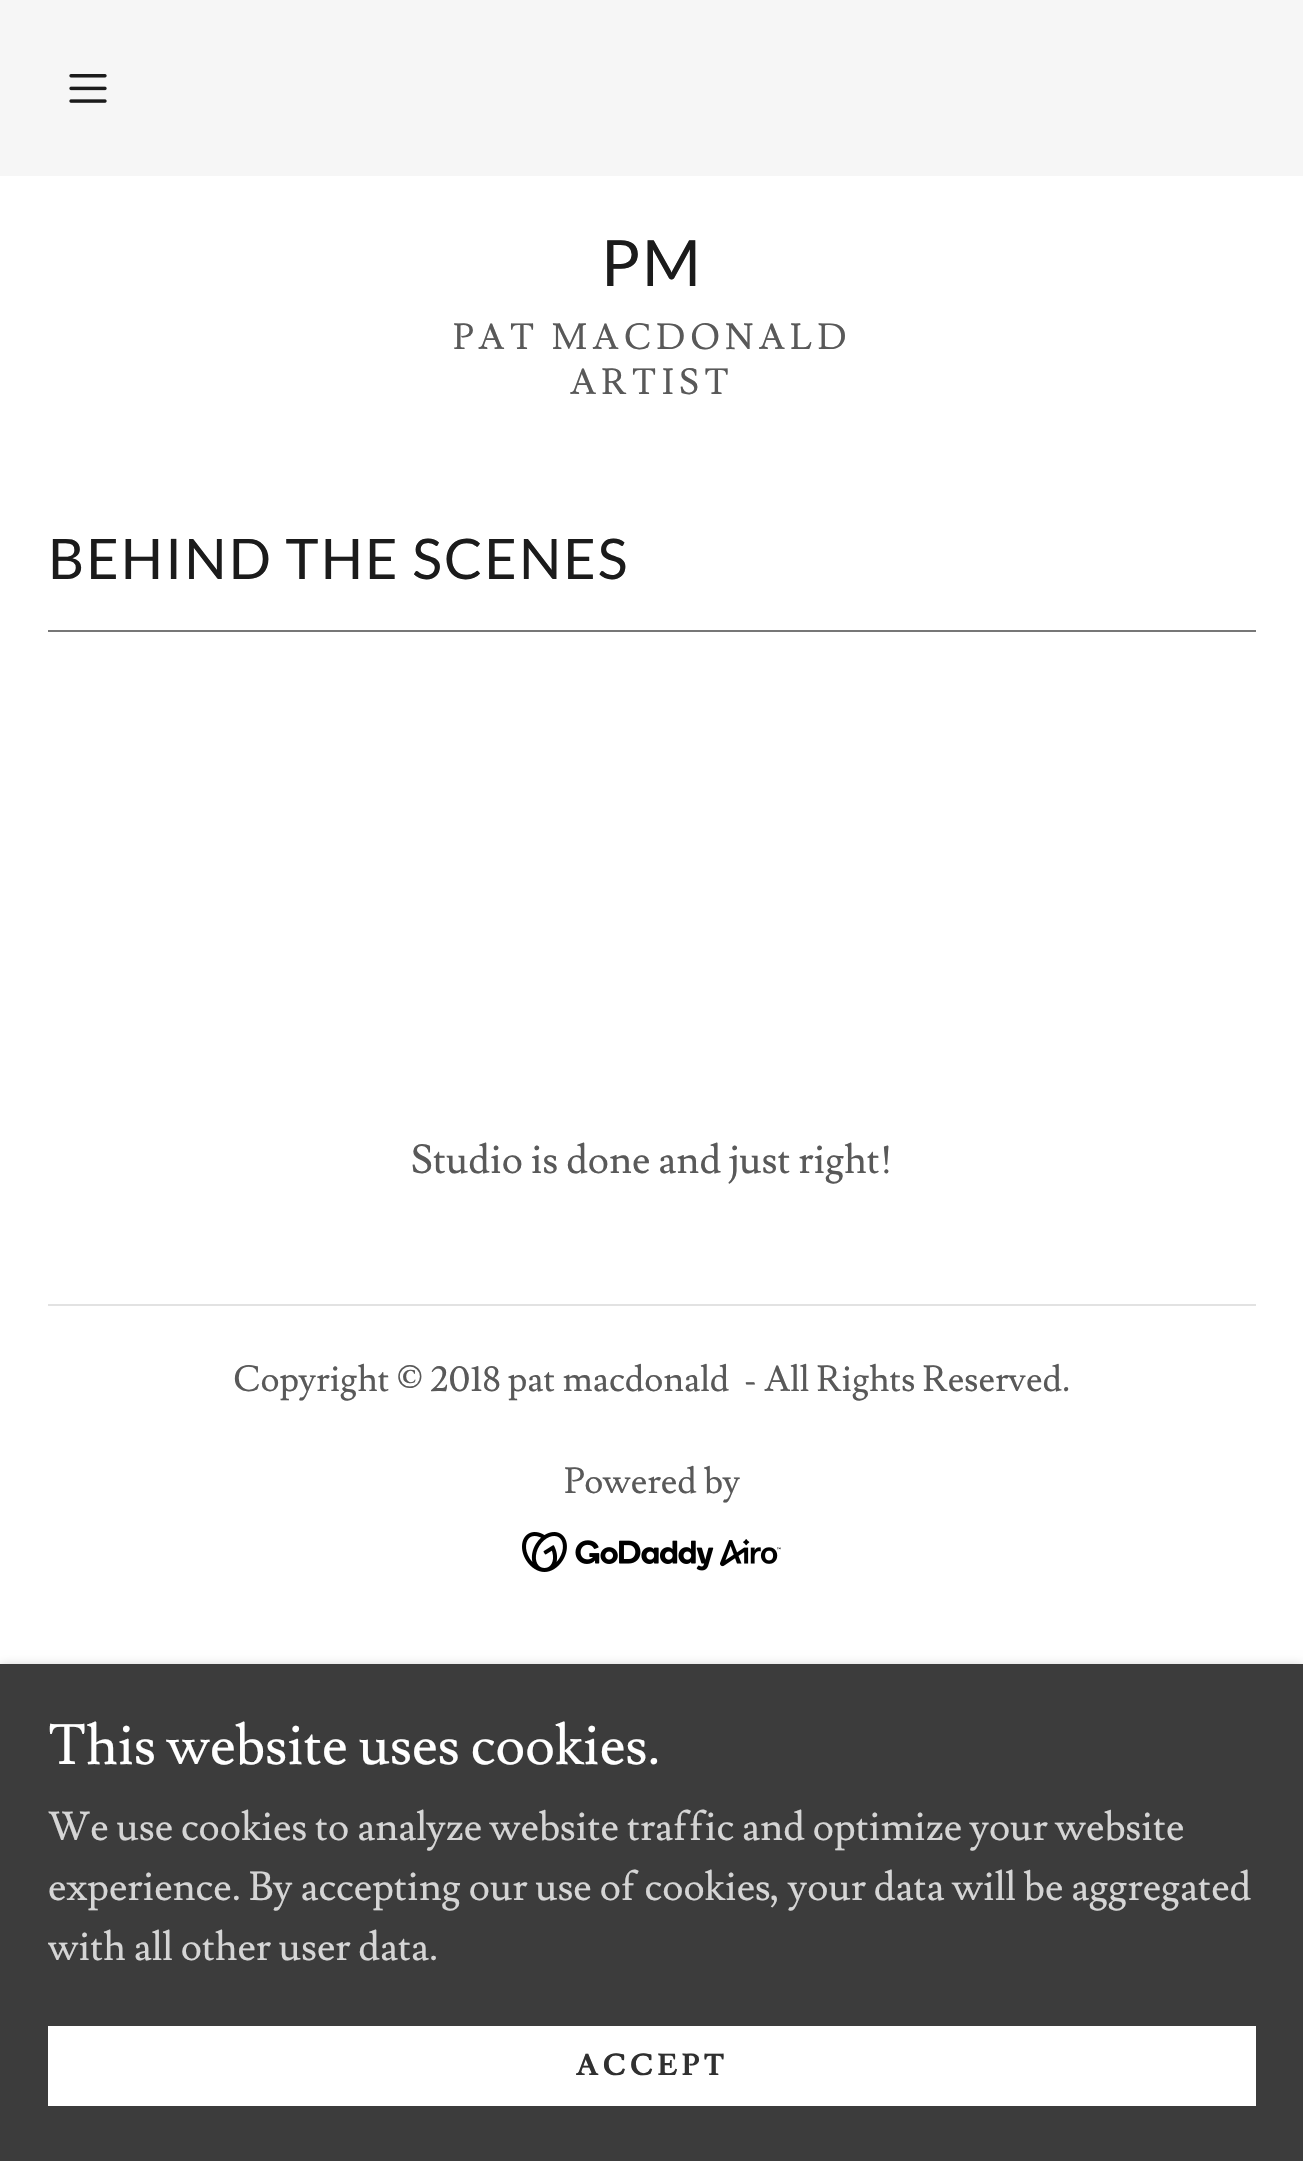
void draw(SkCanvas* canvas) {
    SkPaint paint;
    paint.setAntiAlias(true);
    auto spacedText = [&](const char* s, float x, float y, const SkFont& font, const SkPaint& ink, float letter, float word) {
        std::vector<SkGlyphID> glyphs(font.countText(s, strlen(s), SkTextEncoding::kUTF8));
        std::vector<float> xs(glyphs.size());
        font.textToGlyphs(s, strlen(s), SkTextEncoding::kUTF8, glyphs);
        font.getXPos(glyphs, xs, x);
        float extra = 0;
        for (size_t i = 0; i < glyphs.size(); i++) {
            xs[i] += extra;
            extra += letter + word * (glyphs[i] == font.unicharToGlyph(' '));
        }
        canvas->drawTextBlob(SkTextBlob::MakeFromPosHGlyphs(glyphs, xs, y, font), 0, 0, ink);
    };
    canvas->clear(0xFFFFFFFF);
    paint.setColor(0xFFF6F6F6);
    canvas->drawRect(SkRect::MakeXYWH(0, 0, 1303, 176), paint);
    canvas->drawImageRect(SkImages::DeferredFromEncodedData(SkData::MakeFromFileName("img1.png")), SkRect::MakeXYWH(69, 74, 38, 29), SkSamplingOptions());
    SkFont font1(fontMgr->matchFamilyStyle("Lato", SkFontStyle::Normal()), 64);
    font1.setSubpixel(true);
    paint.setColor(0xFF1B1B1B);
    spacedText("PM", 601, 286, font1, paint, 2, 0);
    SkFont font2(fontMgr->matchFamilyStyle("Lusitana", SkFontStyle::Normal()), 36);
    font2.setSubpixel(true);
    paint.setColor(0xFF595959);
    spacedText("PAT MACDONALD", 453, 349, font2, paint, 5.2f, 0);
    spacedText("ARTIST", 570, 394, font2, paint, 5.2f, 0);
    SkFont font3(fontMgr->matchFamilyStyle("Lato", SkFontStyle::Normal()), 56);
    font3.setSubpixel(true);
    paint.setColor(0xFF1B1B1B);
    spacedText("BEHIND THE SCENES", 48, 579, font3, paint, 2, 0);
    paint.setColor(0xFF777777);
    canvas->drawRect(SkRect::MakeXYWH(48, 630, 1208, 2), paint);
    SkFont font4(fontMgr->matchFamilyStyle("Lusitana", SkFontStyle::Normal()), 40);
    font4.setSubpixel(true);
    paint.setColor(0xFF595959);
    canvas->drawString("Studio is done and just right!", 411, 1173, font4, paint);
    paint.setColor(0xFFE2E2E2);
    canvas->drawRect(SkRect::MakeXYWH(48, 1304, 1208, 2), paint);
    paint.setColor(0xFF595959);
    canvas->drawString("Copyright © 2018 pat macdonald  - All Rights Reserved.", 233, 1391, font2, paint);
    canvas->drawString("Powered by", 564, 1493, font2, paint);
    canvas->drawImageRect(SkImages::DeferredFromEncodedData(SkData::MakeFromFileName("img2.png")), SkRect::MakeXYWH(522, 1532, 259, 40), SkSamplingOptions());
    paint.setColor(0x4D000000);
    paint.setMaskFilter(SkMaskFilter::MakeBlur(kNormal_SkBlurStyle, 6));
    canvas->drawRect(SkRect::MakeXYWH(0, 1668, 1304, 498), paint);
    paint.setMaskFilter(nullptr);
    paint.setColor(0xFF3C3C3C);
    canvas->drawRect(SkRect::MakeXYWH(0, 1664, 1303, 497), paint);
    SkFont font5(fontMgr->matchFamilyStyle("Lusitana", SkFontStyle::Normal()), 56);
    font5.setSubpixel(true);
    paint.setColor(0xFFFFFFFF);
    canvas->drawString("This website uses cookies.", 48, 1764, font5, paint);
    paint.setColor(0xFFD5D5D5);
    canvas->drawString("We use cookies to analyze website traffic and optimize your website", 48, 1840, font4, paint);
    canvas->drawString("experience. By accepting our use of cookies, your data will be aggregated", 48, 1900, font4, paint);
    canvas->save();
    canvas->clipRect(SkRect::MakeXYWH(48, 1798, 1208, 180));
    canvas->drawString("with all other user data.", 48, 1960, font4, paint);
    canvas->restore();
    paint.setColor(0xFFFFFFFF);
    canvas->drawRect(SkRect::MakeXYWH(48, 2026, 1208, 80), paint);
    SkFont font6(fontMgr->matchFamilyStyle("Lusitana", SkFontStyle::Bold()), 30);
    font6.setSubpixel(true);
    paint.setColor(0xFF303030);
    spacedText("ACCEPT", 576, 2075, font6, paint, 4.25f, 0);
}
